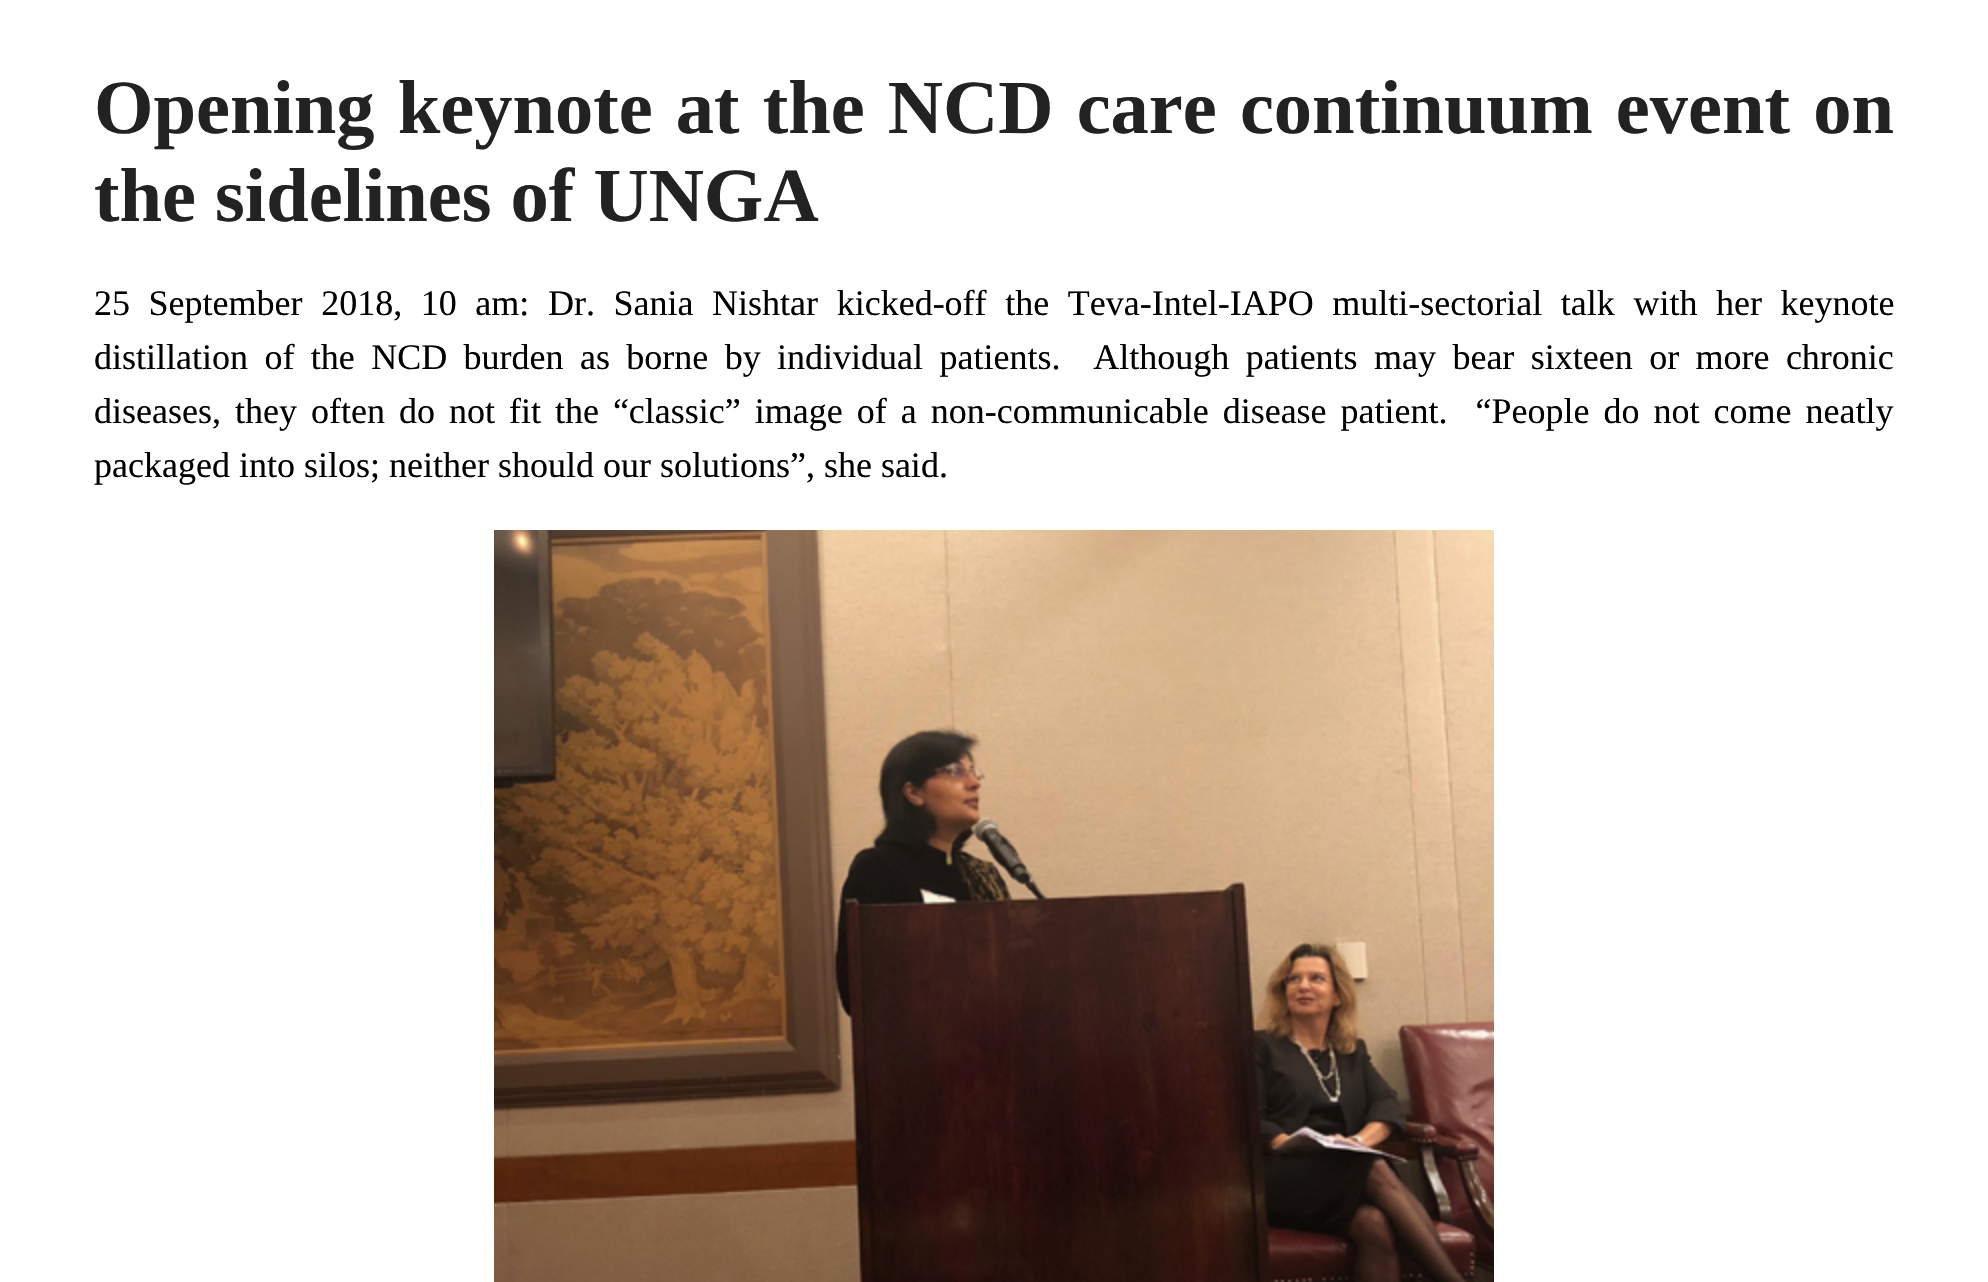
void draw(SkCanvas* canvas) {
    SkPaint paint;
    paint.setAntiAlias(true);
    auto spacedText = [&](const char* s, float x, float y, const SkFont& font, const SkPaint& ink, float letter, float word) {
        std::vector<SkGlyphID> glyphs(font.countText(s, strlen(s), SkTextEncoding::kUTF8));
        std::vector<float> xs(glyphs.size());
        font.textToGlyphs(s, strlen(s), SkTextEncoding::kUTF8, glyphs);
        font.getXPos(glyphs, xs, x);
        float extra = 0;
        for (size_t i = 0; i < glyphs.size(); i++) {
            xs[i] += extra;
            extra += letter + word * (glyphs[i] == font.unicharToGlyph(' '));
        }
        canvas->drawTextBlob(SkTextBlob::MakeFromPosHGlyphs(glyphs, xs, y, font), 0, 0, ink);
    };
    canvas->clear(0xFFFFFFFF);
    SkFont font1(fontMgr->matchFamilyStyle("Liberation Serif", SkFontStyle::Bold()), 76.5f);
    font1.setSubpixel(true);
    paint.setColor(0xFF222222);
    spacedText("Opening keynote at the NCD care continuum event on", 94, 133, font1, paint, 0, 4);
    canvas->drawString("the sidelines of UNGA", 94, 221, font1, paint);
    SkFont font2(fontMgr->matchFamilyStyle("Liberation Serif", SkFontStyle::Normal()), 36);
    font2.setSubpixel(true);
    paint.setColor(0xFF000000);
    spacedText("25 September 2018, 10 am: Dr. Sania Nishtar kicked-off the Teva-Intel-IAPO multi-sectorial talk with her keynote", 94, 315, font2, paint, 0, 9.6f);
    spacedText("distillation of the NCD burden as borne by individual patients.  Although patients may bear sixteen or more chronic", 94, 369, font2, paint, 0, 7.4f);
    spacedText("diseases, they often do not fit the “classic” image of a non-communicable disease patient.  “People do not come neatly", 94, 423, font2, paint, 0, 5);
    canvas->drawString("packaged into silos; neither should our solutions”, she said.", 94, 477, font2, paint);
    canvas->drawImageRect(SkImages::DeferredFromEncodedData(SkData::MakeFromFileName("img1.png")), SkRect::MakeXYWH(494, 530, 1000, 752), SkSamplingOptions());
}
